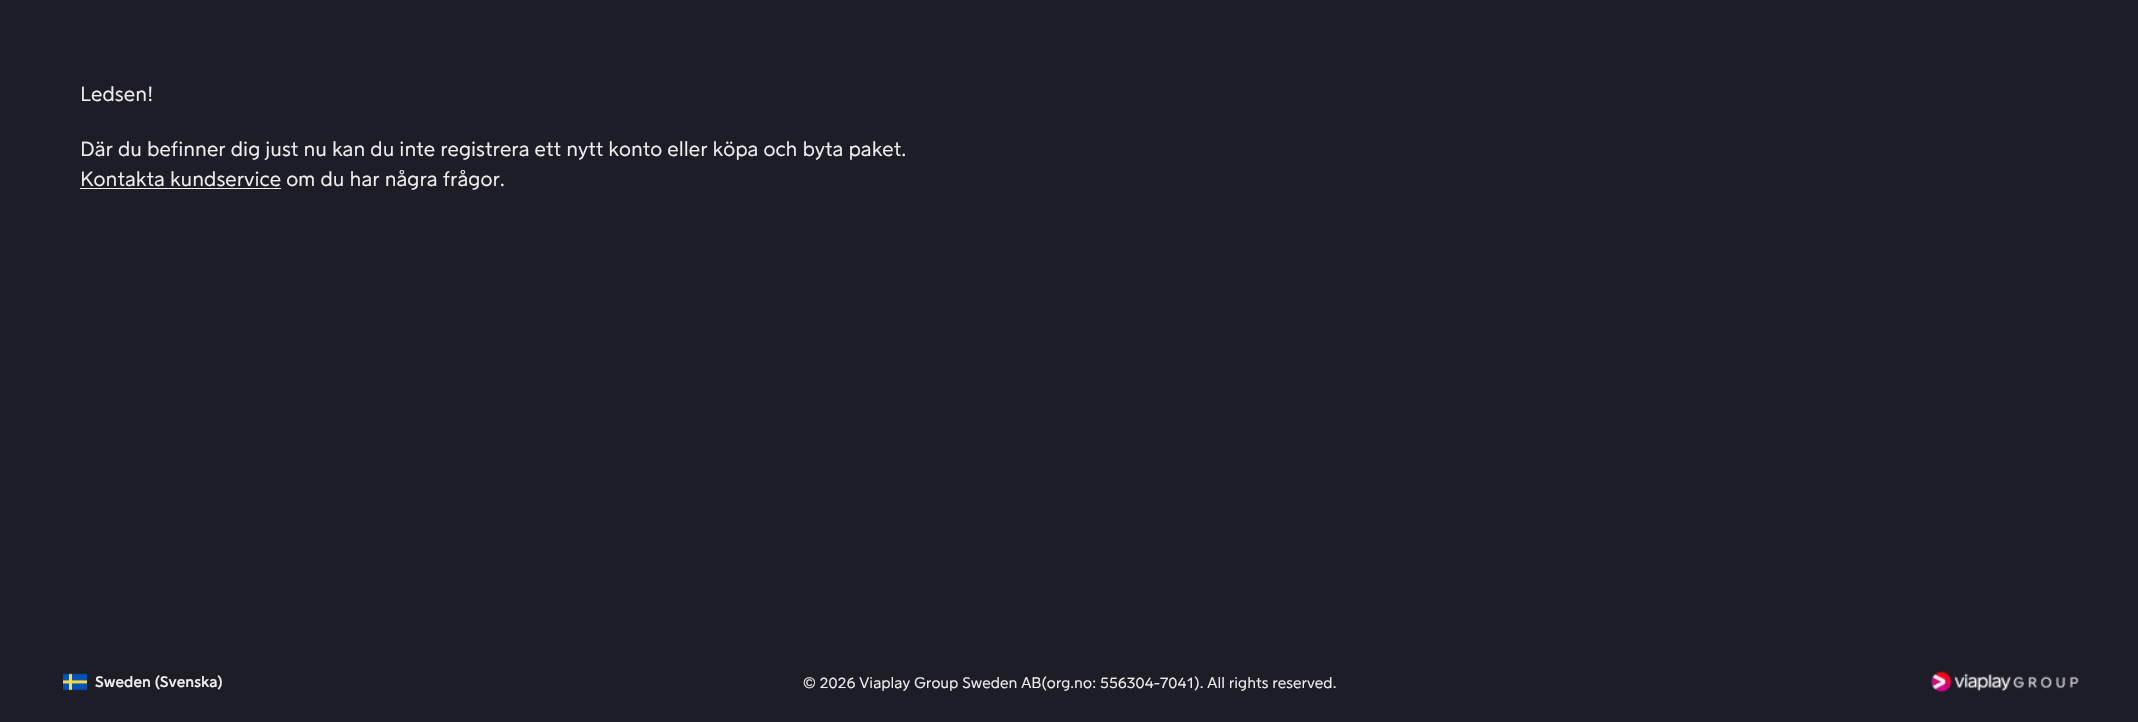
void draw(SkCanvas* canvas) {
    SkPaint paint;
    paint.setAntiAlias(true);
    canvas->clear(0xFF1D1D27);
    SkFont font1(fontMgr->matchFamilyStyle("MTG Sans", SkFontStyle::Normal()), 20);
    font1.setSubpixel(true);
    paint.setColor(0xFFEEEEEE);
    canvas->drawString("Ledsen!", 80, 101, font1, paint);
    canvas->drawString("Där du befinner dig just nu kan du inte registrera ett nytt konto eller köpa och byta paket.", 80, 156, font1, paint);
    canvas->drawRect(SkRect::MakeXYWH(80, 188, 201, 1), paint);
    canvas->drawString("Kontakta kundservice om du har några frågor.", 80, 186, font1, paint);
    canvas->drawImageRect(SkImages::DeferredFromEncodedData(SkData::MakeFromFileName("img1.png")), SkRect::MakeXYWH(63, 673, 24, 18), SkSamplingOptions());
    SkFont font2(fontMgr->matchFamilyStyle("MTG Sans", SkFontStyle::Bold()), 15);
    font2.setSubpixel(true);
    canvas->drawString("Sweden (Svenska)", 95, 687, font2, paint);
    SkFont font3(fontMgr->matchFamilyStyle("MTG Sans", SkFontStyle::Normal()), 15);
    font3.setSubpixel(true);
    canvas->drawString("© 2026 Viaplay Group Sweden AB(org.no: 556304-7041). All rights reserved.", 803, 688, font3, paint);
    canvas->drawImageRect(SkImages::DeferredFromEncodedData(SkData::MakeFromFileName("img2.png")), SkRect::MakeXYWH(1931, 671, 148, 22), SkSamplingOptions());
}
